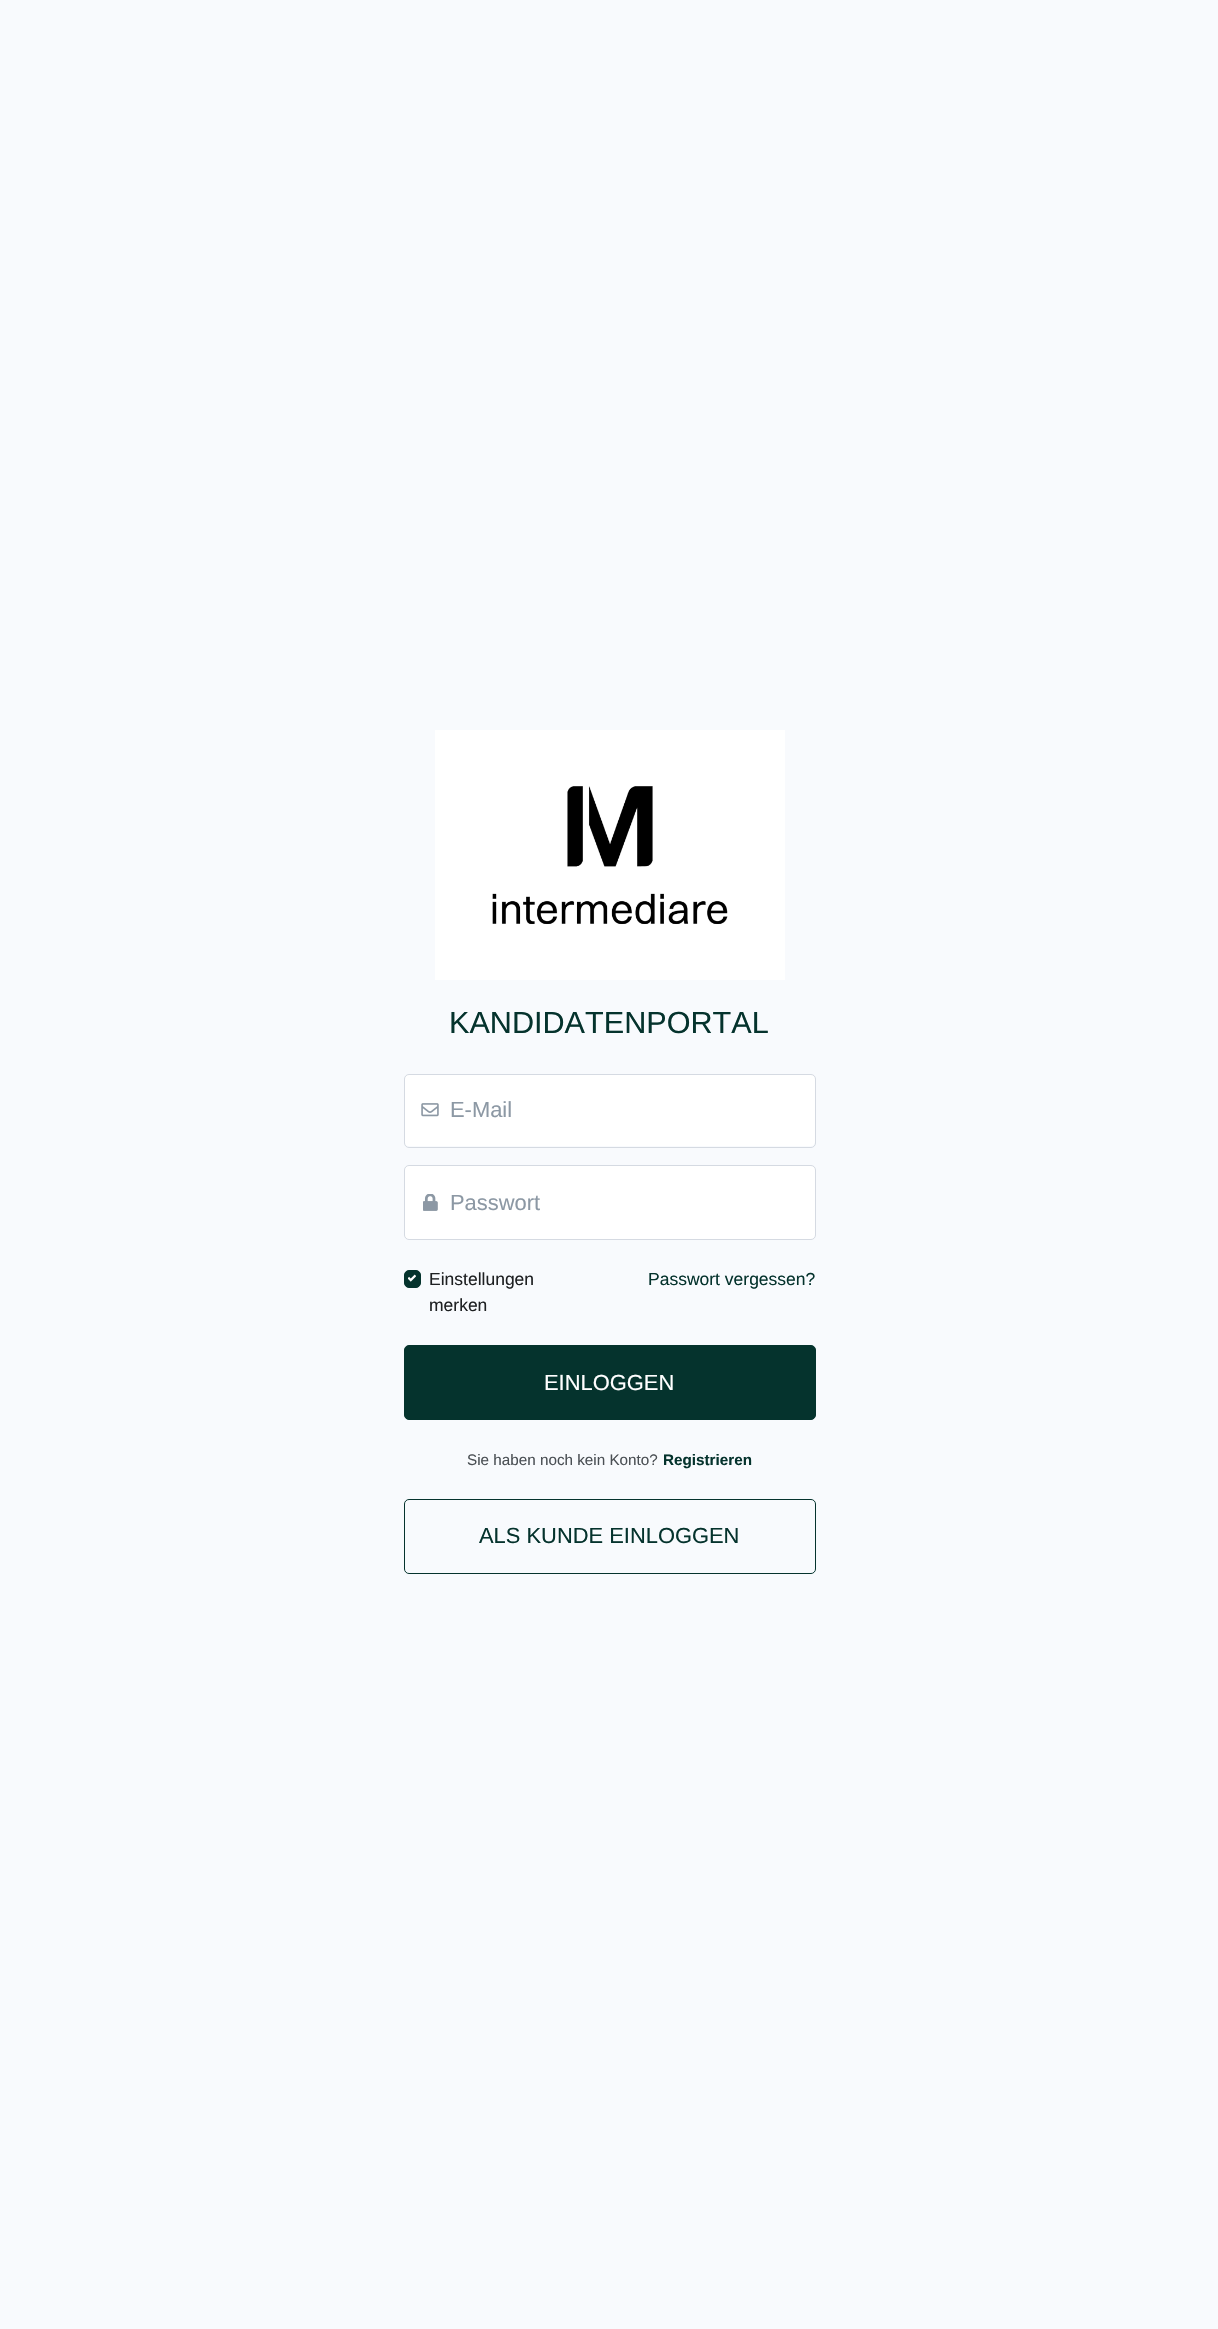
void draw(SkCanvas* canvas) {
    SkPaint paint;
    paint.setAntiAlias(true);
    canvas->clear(0xFFF8FAFD);
    canvas->drawImageRect(SkImages::DeferredFromEncodedData(SkData::MakeFromFileName("img1.png")), SkRect::MakeXYWH(435, 730, 350, 250), SkSamplingOptions());
    SkFont font1(fontMgr->matchFamilyStyle("Liberation Sans", SkFontStyle::Normal()), 30.6f);
    font1.setSubpixel(true);
    paint.setColor(0xFF05332D);
    canvas->drawString("KANDIDATENPORTAL", 449, 1033, font1, paint);
    paint.setColor(0xFFFFFFFF);
    canvas->drawPath(SkPathBuilder().moveTo(408, 1075).lineTo(811, 1075).cubicTo(813, 1075, 815, 1077, 815, 1079).lineTo(815, 1142).cubicTo(815, 1144, 813, 1146, 811, 1146).lineTo(408, 1146).cubicTo(406.5f, 1146, 405, 1144.5f, 405, 1143).lineTo(405, 1078).cubicTo(405, 1076.5f, 406.5f, 1075, 408, 1075).close().detach(), paint);
    paint.setStyle(SkPaint::kStroke_Style);
    paint.setStrokeWidth(1);
    paint.setColor(0xFFD5DAE2);
    canvas->drawRoundRect(SkRect::MakeXYWH(404.5f, 1074.5f, 411, 73), 4.5f, 4.5f, paint);
    canvas->drawImageRect(SkImages::DeferredFromEncodedData(SkData::MakeFromFileName("img2.png")), SkRect::MakeXYWH(421, 1103, 18, 14), SkSamplingOptions());
    SkFont font2(fontMgr->matchFamilyStyle("Liberation Sans", SkFontStyle::Normal()), 21.9f);
    font2.setSubpixel(true);
    paint.setStyle(SkPaint::kFill_Style);
    paint.setColor(0xFF8C98A4);
    canvas->drawString("E-Mail", 450, 1117, font2, paint);
    paint.setColor(0xFFFFFFFF);
    canvas->drawPath(SkPathBuilder().moveTo(408, 1166).lineTo(811, 1166).cubicTo(813, 1166, 815, 1168, 815, 1170).lineTo(815, 1235).cubicTo(815, 1237, 813, 1239, 811, 1239).lineTo(408, 1239).cubicTo(406.5f, 1239, 405, 1237.5f, 405, 1236).lineTo(405, 1169).cubicTo(405, 1167.5f, 406.5f, 1166, 408, 1166).close().detach(), paint);
    paint.setStyle(SkPaint::kStroke_Style);
    paint.setColor(0xFFD5DAE2);
    canvas->drawRoundRect(SkRect::MakeXYWH(404.5f, 1165.5f, 411, 74), 4.5f, 4.5f, paint);
    canvas->drawImageRect(SkImages::DeferredFromEncodedData(SkData::MakeFromFileName("img3.png")), SkRect::MakeXYWH(423, 1194, 15, 17), SkSamplingOptions());
    paint.setStyle(SkPaint::kFill_Style);
    paint.setColor(0xFF8C98A4);
    canvas->drawString("Passwort", 450, 1210, font2, paint);
    paint.setColor(0xFF05332D);
    canvas->drawRoundRect(SkRect::MakeXYWH(404.5f, 1270.5f, 16, 17), 4.5f, 4.5f, paint);
    paint.setStyle(SkPaint::kStroke_Style);
    canvas->drawRoundRect(SkRect::MakeXYWH(404.5f, 1270.5f, 16, 17), 4.5f, 4.5f, paint);
    SkFont font3(fontMgr->matchFamilyStyle("Liberation Sans", SkFontStyle::Normal()), 17.5f);
    font3.setSubpixel(true);
    paint.setStyle(SkPaint::kFill_Style);
    paint.setColor(0xFF1E2022);
    canvas->drawString("Einstellungen", 429, 1285, font3, paint);
    canvas->drawImageRect(SkImages::DeferredFromEncodedData(SkData::MakeFromFileName("img4.png")), SkRect::MakeXYWH(408, 1274, 8, 8), SkSamplingOptions());
    canvas->drawString("merken", 429, 1311, font3, paint);
    paint.setColor(0xFF05332D);
    canvas->drawString("Passwort vergessen?", 648, 1285, font3, paint);
    canvas->drawRoundRect(SkRect::MakeXYWH(404.5f, 1345.5f, 411, 74), 4.5f, 4.5f, paint);
    paint.setStyle(SkPaint::kStroke_Style);
    canvas->drawRoundRect(SkRect::MakeXYWH(404.5f, 1345.5f, 411, 74), 4.5f, 4.5f, paint);
    paint.setStyle(SkPaint::kFill_Style);
    paint.setColor(0xFFFFFFFF);
    canvas->drawString("EINLOGGEN", 544, 1390, font2, paint);
    SkFont font4(fontMgr->matchFamilyStyle("Liberation Sans", SkFontStyle::Normal()), 15.25f);
    font4.setSubpixel(true);
    paint.setColor(0xFF4A4F54);
    canvas->drawString("Sie haben noch kein Konto?", 467, 1465, font4, paint);
    SkFont font5(fontMgr->matchFamilyStyle("Liberation Sans", SkFontStyle::Bold()), 15.25f);
    font5.setSubpixel(true);
    paint.setColor(0xFF05332D);
    canvas->drawString("Registrieren", 663, 1465, font5, paint);
    paint.setStyle(SkPaint::kStroke_Style);
    canvas->drawRoundRect(SkRect::MakeXYWH(404.5f, 1499.5f, 411, 74), 4.5f, 4.5f, paint);
    paint.setStyle(SkPaint::kFill_Style);
    canvas->drawString("ALS KUNDE EINLOGGEN", 479, 1543, font2, paint);
}
